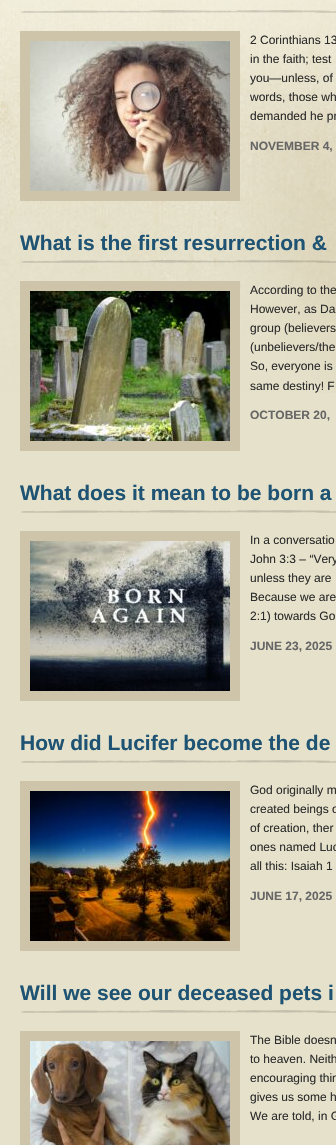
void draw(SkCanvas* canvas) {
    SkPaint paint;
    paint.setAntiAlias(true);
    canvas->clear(0xFFE5E1CA);
    canvas->drawImageRect(SkImages::DeferredFromEncodedData(SkData::MakeFromFileName("img1.png")), SkRect::MakeXYWH(0, 0, 336, 393), SkSamplingOptions());
    canvas->drawImageRect(SkImages::DeferredFromEncodedData(SkData::MakeFromFileName("img2.png")), SkRect::MakeXYWH(0, 0, 336, 121), SkSamplingOptions());
    canvas->drawImageRect(SkImages::DeferredFromEncodedData(SkData::MakeFromFileName("img3.png")), SkRect::MakeXYWH(21, 10, 315, 3), SkSamplingOptions());
    paint.setColor(0xFFCEC4A9);
    canvas->drawRect(SkRect::MakeXYWH(20, 31, 220, 170), paint);
    canvas->drawImageRect(SkImages::DeferredFromEncodedData(SkData::MakeFromFileName("img4.png")), SkRect::MakeXYWH(30, 41, 200, 150), SkSamplingOptions());
    SkFont font1(fontMgr->matchFamilyStyle("Liberation Sans", SkFontStyle::Normal()), 12);
    font1.setSubpixel(true);
    paint.setColor(0xFF2C2C2C);
    canvas->drawString("2 Corinthians 13", 250, 44, font1, paint);
    canvas->drawString("in the faith; test", 250, 63, font1, paint);
    canvas->drawString("you—unless, of", 250, 82, font1, paint);
    canvas->drawString("words, those wh", 250, 101, font1, paint);
    canvas->drawString("demanded he pr", 250, 120, font1, paint);
    SkFont font2(fontMgr->matchFamilyStyle("Liberation Sans", SkFontStyle::Bold()), 12);
    font2.setSubpixel(true);
    paint.setColor(0xFF666666);
    canvas->drawString("NOVEMBER 4,", 250, 150, font2, paint);
    canvas->drawImageRect(SkImages::DeferredFromEncodedData(SkData::MakeFromFileName("img5.png")), SkRect::MakeXYWH(21, 260, 315, 3), SkSamplingOptions());
    SkFont font3(fontMgr->matchFamilyStyle("Liberation Sans", SkFontStyle::Bold()), 21);
    font3.setSubpixel(true);
    paint.setColor(0xFF1E5373);
    canvas->drawString("What is the first resurrection &", 20, 250, font3, paint);
    paint.setColor(0xFFCEC4A9);
    canvas->drawRect(SkRect::MakeXYWH(20, 281, 220, 170), paint);
    canvas->drawImageRect(SkImages::DeferredFromEncodedData(SkData::MakeFromFileName("img6.png")), SkRect::MakeXYWH(30, 291, 200, 150), SkSamplingOptions());
    paint.setColor(0xFF2C2C2C);
    canvas->drawString("According to the", 250, 294, font1, paint);
    canvas->drawString("However, as Da", 250, 313, font1, paint);
    canvas->drawString("group (believers", 250, 332, font1, paint);
    canvas->drawString("(unbelievers/the", 250, 351, font1, paint);
    canvas->drawString("So, everyone is", 250, 370, font1, paint);
    canvas->drawString("same destiny! F", 250, 390, font1, paint);
    paint.setColor(0xFF666666);
    canvas->drawString("OCTOBER 20,", 250, 419, font2, paint);
    canvas->drawImageRect(SkImages::DeferredFromEncodedData(SkData::MakeFromFileName("img7.png")), SkRect::MakeXYWH(21, 510, 315, 3), SkSamplingOptions());
    paint.setColor(0xFF1E5373);
    canvas->drawString("What does it mean to be born a", 20, 500, font3, paint);
    paint.setColor(0xFFCEC4A9);
    canvas->drawRect(SkRect::MakeXYWH(20, 531, 220, 170), paint);
    canvas->drawImageRect(SkImages::DeferredFromEncodedData(SkData::MakeFromFileName("img8.png")), SkRect::MakeXYWH(30, 541, 200, 150), SkSamplingOptions());
    paint.setColor(0xFF2C2C2C);
    canvas->drawString("In a conversatio", 250, 544, font1, paint);
    canvas->drawString("John 3:3 – “Very", 250, 563, font1, paint);
    canvas->drawString("unless they are", 250, 582, font1, paint);
    canvas->drawString("Because we are", 250, 601, font1, paint);
    canvas->drawString("2:1) towards Go", 250, 620, font1, paint);
    paint.setColor(0xFF666666);
    canvas->drawString("JUNE 23, 2025", 250, 650, font2, paint);
    canvas->drawImageRect(SkImages::DeferredFromEncodedData(SkData::MakeFromFileName("img7.png")), SkRect::MakeXYWH(21, 760, 315, 3), SkSamplingOptions());
    paint.setColor(0xFF1E5373);
    canvas->drawString("How did Lucifer become the de", 20, 750, font3, paint);
    paint.setColor(0xFFCEC4A9);
    canvas->drawRect(SkRect::MakeXYWH(20, 781, 220, 170), paint);
    canvas->drawImageRect(SkImages::DeferredFromEncodedData(SkData::MakeFromFileName("img9.png")), SkRect::MakeXYWH(30, 791, 200, 150), SkSamplingOptions());
    paint.setColor(0xFF2C2C2C);
    canvas->drawString("God originally m", 250, 794, font1, paint);
    canvas->drawString("created beings o", 250, 813, font1, paint);
    canvas->drawString("of creation, ther", 250, 832, font1, paint);
    canvas->drawString("ones named Luc", 250, 851, font1, paint);
    canvas->drawString("all this: Isaiah 1", 250, 870, font1, paint);
    paint.setColor(0xFF666666);
    canvas->drawString("JUNE 17, 2025", 250, 900, font2, paint);
    canvas->drawImageRect(SkImages::DeferredFromEncodedData(SkData::MakeFromFileName("img7.png")), SkRect::MakeXYWH(21, 1010, 315, 3), SkSamplingOptions());
    paint.setColor(0xFF1E5373);
    canvas->drawString("Will we see our deceased pets i", 20, 1000, font3, paint);
    paint.setColor(0xFFCEC4A9);
    canvas->drawRect(SkRect::MakeXYWH(20, 1031, 220, 114), paint);
    canvas->drawImageRect(SkImages::DeferredFromEncodedData(SkData::MakeFromFileName("img10.png")), SkRect::MakeXYWH(30, 1041, 200, 104), SkSamplingOptions());
    paint.setColor(0xFF2C2C2C);
    canvas->drawString("The Bible doesn", 250, 1044, font1, paint);
    canvas->drawString("to heaven. Neith", 250, 1063, font1, paint);
    canvas->drawString("encouraging thin", 250, 1082, font1, paint);
    canvas->drawString("gives us some h", 250, 1101, font1, paint);
    canvas->drawString("We are told, in G", 250, 1120, font1, paint);
}
